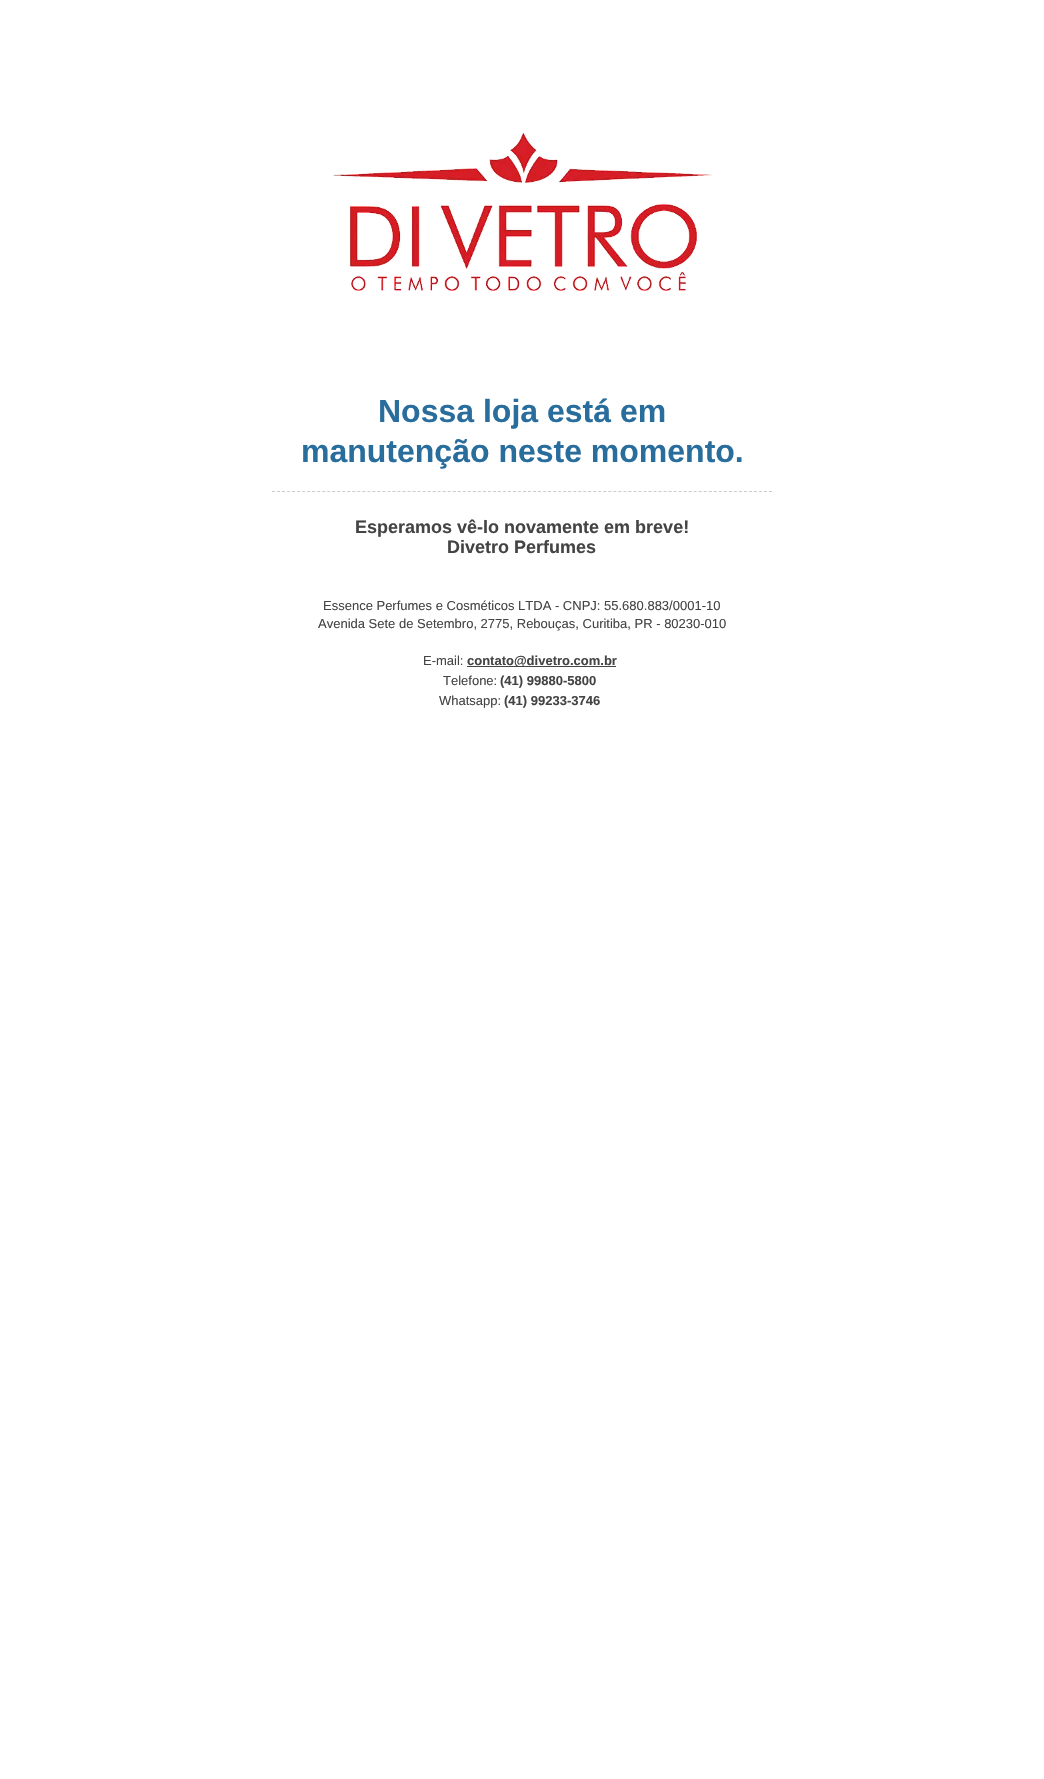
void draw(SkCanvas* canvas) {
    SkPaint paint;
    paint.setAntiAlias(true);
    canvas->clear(0xFFFFFFFF);
    canvas->drawImageRect(SkImages::DeferredFromEncodedData(SkData::MakeFromFileName("img1.png")), SkRect::MakeXYWH(333, 133, 380, 158), SkSamplingOptions());
    paint.setStyle(SkPaint::kStroke_Style);
    paint.setStrokeWidth(1);
    paint.setColor(0xFFCCCCCC);
    paint.setPathEffect(SkDashPathEffect::Make({{3, 2.02f}}, 0));
    canvas->drawPath(SkPathBuilder().moveTo(272, 491.5f).lineTo(772, 491.5f).detach(), paint);
    paint.setPathEffect(nullptr);
    SkFont font1(fontMgr->matchFamilyStyle("Liberation Sans", SkFontStyle::Bold()), 32);
    font1.setSubpixel(true);
    paint.setStyle(SkPaint::kFill_Style);
    paint.setColor(0xFF296D9D);
    canvas->drawString("Nossa loja está em", 378, 422, font1, paint);
    canvas->drawString("manutenção neste momento.", 301, 462, font1, paint);
    SkFont font2(fontMgr->matchFamilyStyle("Liberation Sans", SkFontStyle::Bold()), 18);
    font2.setSubpixel(true);
    paint.setColor(0xFF444444);
    canvas->drawString("Esperamos vê-lo novamente em breve!", 355, 533, font2, paint);
    canvas->drawString("Divetro Perfumes", 447, 553, font2, paint);
    SkFont font3(fontMgr->matchFamilyStyle("Liberation Sans", SkFontStyle::Normal()), 13);
    font3.setSubpixel(true);
    canvas->drawString("Essence Perfumes e Cosméticos LTDA - CNPJ: 55.680.883/0001-10", 323, 610, font3, paint);
    canvas->drawString("Avenida Sete de Setembro, 2775, Rebouças, Curitiba, PR - 80230-010", 318, 628, font3, paint);
    canvas->drawString("E-mail:", 423, 665, font3, paint);
    canvas->drawRect(SkRect::MakeXYWH(467, 666, 149, 1), paint);
    SkFont font4(fontMgr->matchFamilyStyle("Liberation Sans", SkFontStyle::Bold()), 13);
    font4.setSubpixel(true);
    canvas->drawString("contato@divetro.com.br", 467, 665, font4, paint);
    canvas->drawString("Telefone:", 443, 685, font3, paint);
    canvas->drawString("(41) 99880-5800", 500, 685, font4, paint);
    canvas->drawString("Whatsapp:", 439, 705, font3, paint);
    canvas->drawString("(41) 99233-3746", 504, 705, font4, paint);
}
